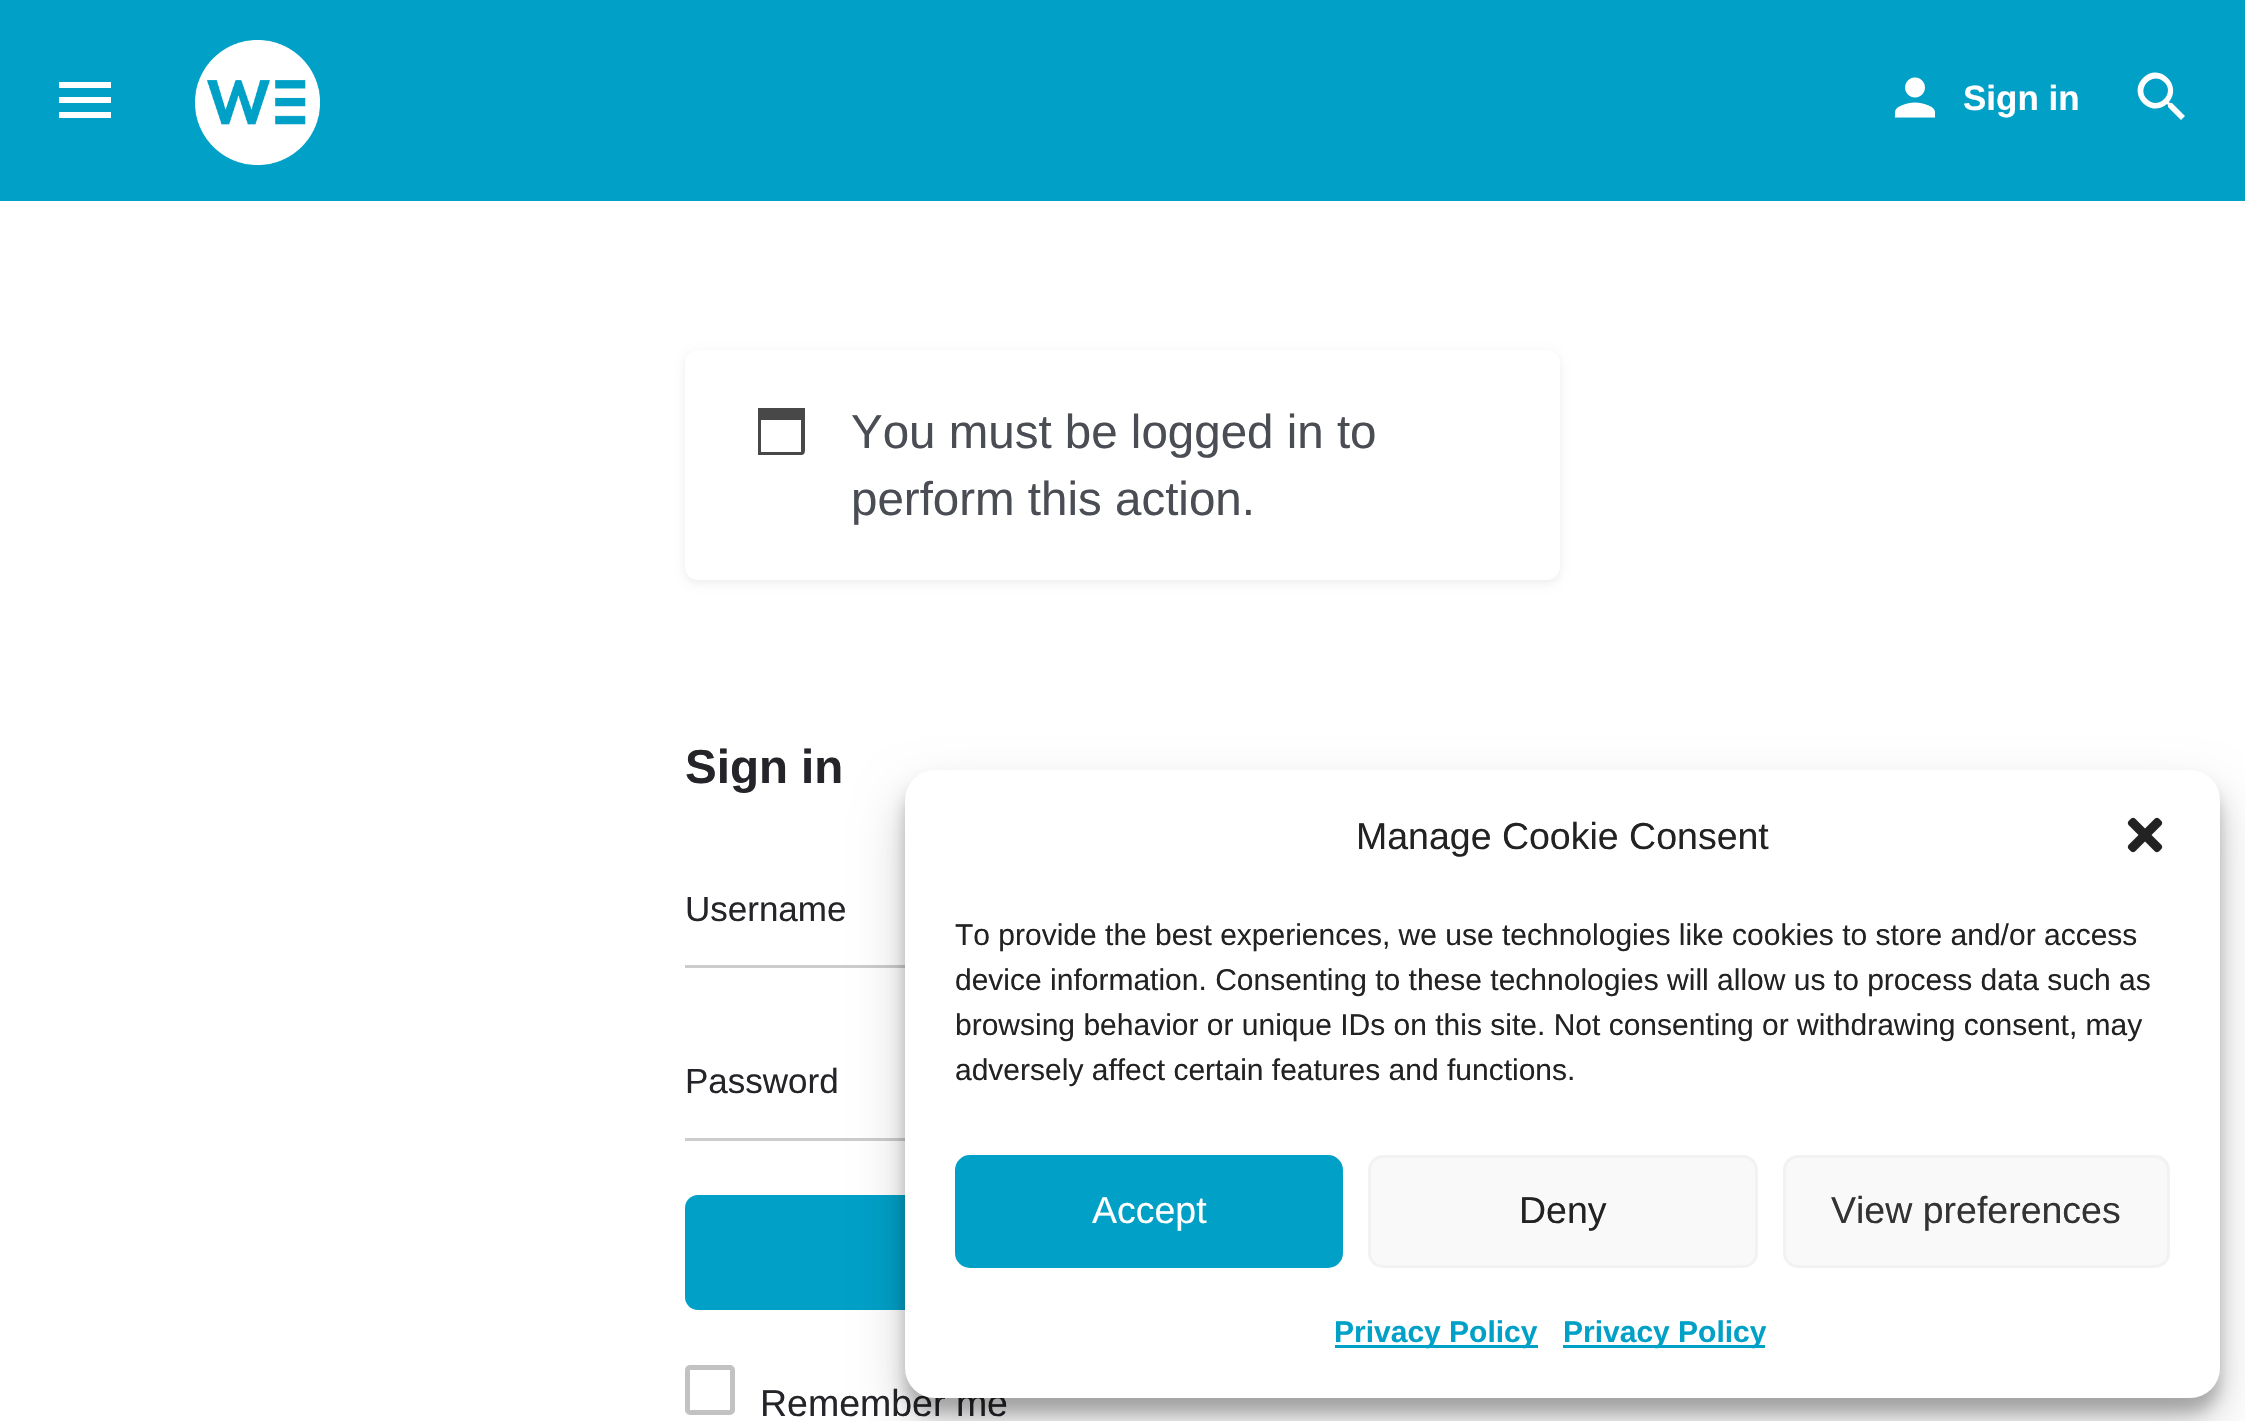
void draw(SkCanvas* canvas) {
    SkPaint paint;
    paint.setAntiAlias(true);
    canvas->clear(0xFFFFFFFF);
    paint.setColor(0xFF00A0C7);
    canvas->drawRect(SkRect::MakeXYWH(0, 0, 2245, 201), paint);
    paint.setColor(0xFFFFFFFF);
    canvas->drawPath(SkPathBuilder().moveTo(59, 82).lineTo(111, 82).lineTo(111, 88).lineTo(59, 88).close().moveTo(59, 103).lineTo(59, 97).lineTo(111, 97).lineTo(111, 103).close().moveTo(59, 118).lineTo(59, 112).lineTo(111, 112).lineTo(111, 118).close().detach(), paint);
    canvas->drawImageRect(SkImages::DeferredFromEncodedData(SkData::MakeFromFileName("img1.png")), SkRect::MakeXYWH(195, 40, 125, 125), SkSamplingOptions());
    canvas->drawImageRect(SkImages::DeferredFromEncodedData(SkData::MakeFromFileName("img2.png")), SkRect::MakeXYWH(1894, 77, 42, 41), SkSamplingOptions());
    SkFont font1(fontMgr->matchFamilyStyle("Liberation Sans", SkFontStyle::Bold()), 35);
    font1.setSubpixel(true);
    canvas->drawString("Sign in", 1963, 110, font1, paint);
    canvas->drawPath(SkPathBuilder().moveTo(2147, 99).cubicTo(2158, 111, 2176, 93, 2164, 82).cubicTo(2153, 71, 2136, 88, 2147, 99).close().moveTo(2172, 103).lineTo(2185, 116).lineTo(2181, 120).lineTo(2168, 107).lineTo(2168, 105).lineTo(2167, 104).cubicTo(2150, 119, 2127, 94, 2143, 78).cubicTo(2159, 62, 2183, 85, 2169, 102).lineTo(2170, 103).close().detach(), paint);
    paint.setColor(0x12000000);
    paint.setMaskFilter(SkMaskFilter::MakeBlur(kNormal_SkBlurStyle, 5));
    canvas->drawRoundRect(SkRect::MakeXYWH(685, 353, 875, 230), 13, 13, paint);
    paint.setMaskFilter(nullptr);
    paint.setColor(0xFFFFFFFF);
    canvas->drawRoundRect(SkRect::MakeXYWH(685, 350, 875, 230), 13, 13, paint);
    paint.setColor(0xFF484848);
    canvas->drawPath(SkPathBuilder().moveTo(801, 420).lineTo(761, 420).lineTo(761, 452).lineTo(801, 452).close().moveTo(805, 408).lineTo(805, 444).cubicTo(805, 456, 806, 455, 794, 455).lineTo(758, 455).lineTo(758, 408).close().detach(), paint);
    SkFont font2(fontMgr->matchFamilyStyle("Liberation Sans", SkFontStyle::Normal()), 47.5f);
    font2.setSubpixel(true);
    paint.setColor(0xFF4A4D54);
    canvas->drawString("You must be logged in to", 851, 448, font2, paint);
    canvas->drawString("perform this action.", 851, 515, font2, paint);
    SkFont font3(fontMgr->matchFamilyStyle("Liberation Sans", SkFontStyle::Bold()), 47.5f);
    font3.setSubpixel(true);
    paint.setColor(0xFF242429);
    canvas->drawString("Sign in", 685, 783, font3, paint);
    SkFont font4(fontMgr->matchFamilyStyle("Liberation Sans", SkFontStyle::Normal()), 35);
    font4.setSubpixel(true);
    canvas->drawString("Username", 685, 921, font4, paint);
    paint.setColor(0xFFCCCCCC);
    canvas->drawRect(SkRect::MakeXYWH(685, 965, 220, 3), paint);
    paint.setColor(0xFF242429);
    canvas->drawString("Password", 685, 1093, font4, paint);
    paint.setColor(0xFFCCCCCC);
    canvas->drawRect(SkRect::MakeXYWH(685, 1138, 220, 3), paint);
    paint.setColor(0xFF00A0C7);
    canvas->drawRoundRect(SkRect::MakeXYWH(685, 1195, 875, 115), 13, 13, paint);
    paint.setStyle(SkPaint::kStroke_Style);
    paint.setStrokeWidth(5);
    paint.setColor(0xFFC2C2C2);
    canvas->drawRoundRect(SkRect::MakeXYWH(687.5f, 1367.5f, 45, 45), 2.5f, 2.5f, paint);
    SkFont font5(fontMgr->matchFamilyStyle("Liberation Sans", SkFontStyle::Normal()), 37.5f);
    font5.setSubpixel(true);
    paint.setStyle(SkPaint::kFill_Style);
    paint.setColor(0xFF242429);
    canvas->drawString("Remember me", 760, 1416, font5, paint);
    paint.setColor(0x3B000000);
    paint.setMaskFilter(SkMaskFilter::MakeBlur(kNormal_SkBlurStyle, 7.5f));
    canvas->drawRoundRect(SkRect::MakeXYWH(905, 785, 1315, 628), 30, 30, paint);
    paint.setMaskFilter(nullptr);
    paint.setColor(0x30000000);
    paint.setMaskFilter(SkMaskFilter::MakeBlur(kNormal_SkBlurStyle, 25));
    canvas->drawRoundRect(SkRect::MakeXYWH(905, 795, 1315, 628), 30, 30, paint);
    paint.setMaskFilter(nullptr);
    paint.setColor(0xFFFFFFFF);
    canvas->drawRoundRect(SkRect::MakeXYWH(905, 770, 1315, 628), 30, 30, paint);
    paint.setColor(0xFF222222);
    canvas->drawString("Manage Cookie Consent", 1356, 849, font5, paint);
    canvas->drawImageRect(SkImages::DeferredFromEncodedData(SkData::MakeFromFileName("img3.png")), SkRect::MakeXYWH(2127, 817, 36, 36), SkSamplingOptions());
    SkFont font6(fontMgr->matchFamilyStyle("Liberation Sans", SkFontStyle::Normal()), 30);
    font6.setSubpixel(true);
    canvas->drawString("To provide the best experiences, we use technologies like cookies to store and/or access", 955, 945, font6, paint);
    canvas->drawString("device information. Consenting to these technologies will allow us to process data such as", 955, 990, font6, paint);
    canvas->drawString("browsing behavior or unique IDs on this site. Not consenting or withdrawing consent, may", 955, 1035, font6, paint);
    canvas->drawString("adversely affect certain features and functions.", 955, 1080, font6, paint);
    paint.setColor(0xFF00A0C7);
    canvas->drawRoundRect(SkRect::MakeXYWH(956.5f, 1156.5f, 385, 110), 13.5f, 13.5f, paint);
    paint.setStyle(SkPaint::kStroke_Style);
    paint.setStrokeWidth(3);
    canvas->drawRoundRect(SkRect::MakeXYWH(956.5f, 1156.5f, 385, 110), 13.5f, 13.5f, paint);
    paint.setStyle(SkPaint::kFill_Style);
    paint.setColor(0xFFFFFFFF);
    canvas->drawString("Accept", 1092, 1223, font5, paint);
    paint.setColor(0xFFF9F9F9);
    canvas->drawRoundRect(SkRect::MakeXYWH(1369.5f, 1156.5f, 387, 110), 13.5f, 13.5f, paint);
    paint.setStyle(SkPaint::kStroke_Style);
    paint.setColor(0xFFF2F2F2);
    canvas->drawRoundRect(SkRect::MakeXYWH(1369.5f, 1156.5f, 387, 110), 13.5f, 13.5f, paint);
    paint.setStyle(SkPaint::kFill_Style);
    paint.setColor(0xFF222222);
    canvas->drawString("Deny", 1519, 1223, font5, paint);
    paint.setColor(0xFFF9F9F9);
    canvas->drawRoundRect(SkRect::MakeXYWH(1784.5f, 1156.5f, 384, 110), 13.5f, 13.5f, paint);
    paint.setStyle(SkPaint::kStroke_Style);
    paint.setColor(0xFFF2F2F2);
    canvas->drawRoundRect(SkRect::MakeXYWH(1784.5f, 1156.5f, 384, 110), 13.5f, 13.5f, paint);
    paint.setStyle(SkPaint::kFill_Style);
    paint.setColor(0xFF333333);
    canvas->drawString("View preferences", 1831, 1223, font5, paint);
    paint.setColor(0xFF00A0C7);
    canvas->drawRect(SkRect::MakeXYWH(1335, 1345, 203, 3), paint);
    SkFont font7(fontMgr->matchFamilyStyle("Liberation Sans", SkFontStyle::Bold()), 30);
    font7.setSubpixel(true);
    canvas->drawString("Privacy Policy", 1334, 1342, font7, paint);
    canvas->drawRect(SkRect::MakeXYWH(1563, 1345, 202, 3), paint);
    canvas->drawString("Privacy Policy", 1563, 1342, font7, paint);
}
